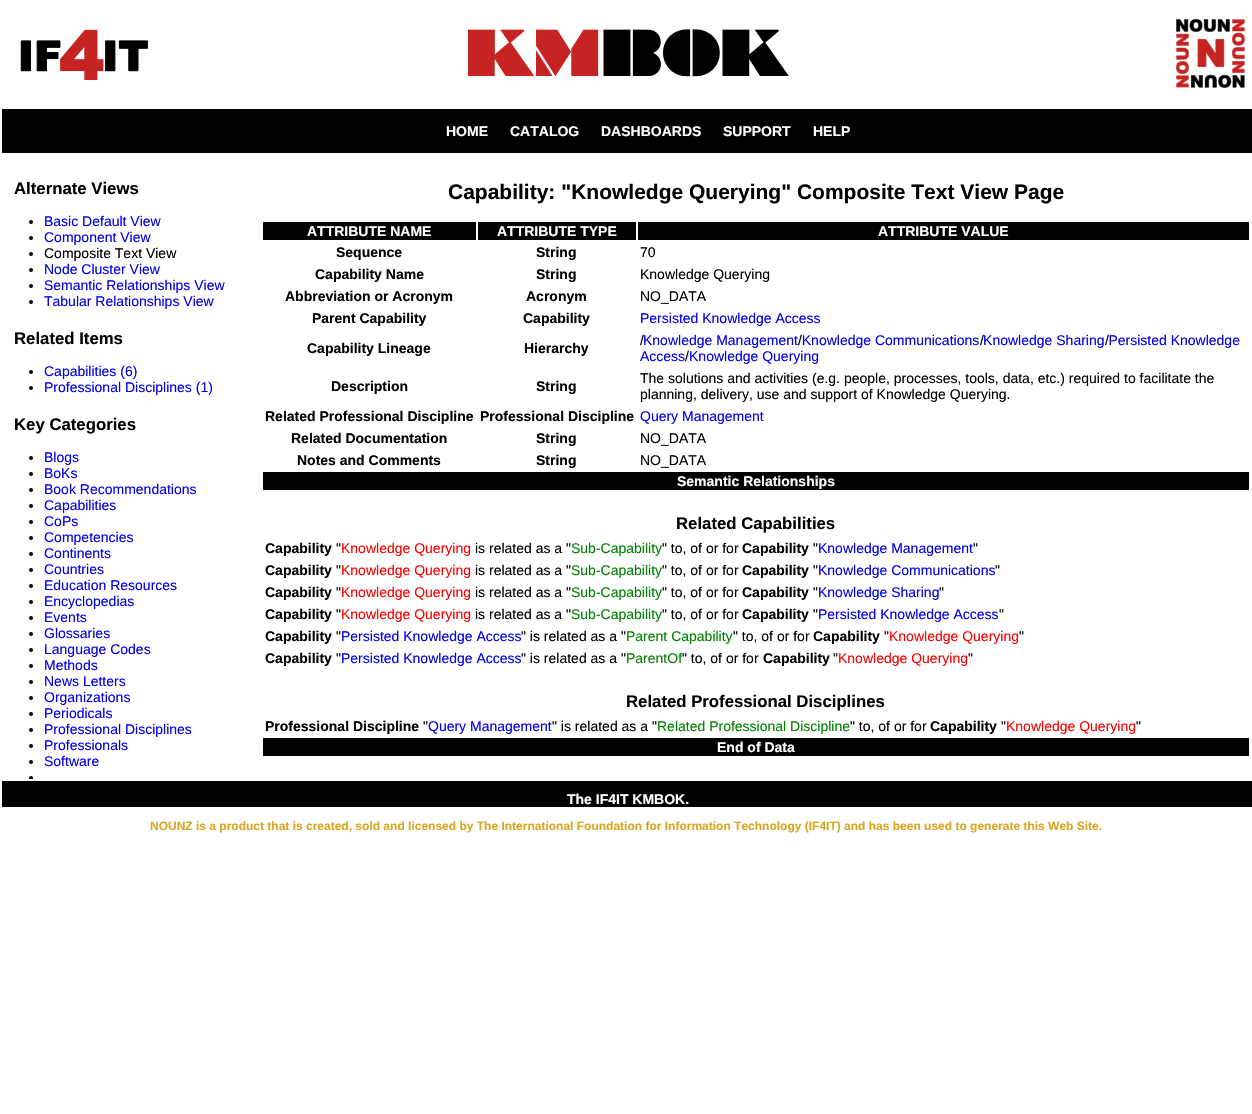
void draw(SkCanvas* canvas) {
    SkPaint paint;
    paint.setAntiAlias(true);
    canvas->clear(0xFFFFFFFF);
    canvas->drawImageRect(SkImages::DeferredFromEncodedData(SkData::MakeFromFileName("img1.png")), SkRect::MakeXYWH(20, 29, 128, 51), SkSamplingOptions());
    canvas->drawImageRect(SkImages::DeferredFromEncodedData(SkData::MakeFromFileName("img2.png")), SkRect::MakeXYWH(468, 29, 321, 48), SkSamplingOptions());
    canvas->drawImageRect(SkImages::DeferredFromEncodedData(SkData::MakeFromFileName("img3.png")), SkRect::MakeXYWH(1176, 19, 69, 69), SkSamplingOptions());
    paint.setColor(0xFF000000);
    canvas->drawRect(SkRect::MakeXYWH(2, 109, 1250, 44), paint);
    SkFont font1(fontMgr->matchFamilyStyle("Liberation Sans", SkFontStyle::Bold()), 14);
    font1.setSubpixel(true);
    paint.setColor(0xFFFFFFFF);
    canvas->drawString("HOME", 446, 136, font1, paint);
    canvas->drawString("CATALOG", 510, 136, font1, paint);
    canvas->drawString("DASHBOARDS", 601, 136, font1, paint);
    canvas->drawString("SUPPORT", 723, 136, font1, paint);
    canvas->drawString("HELP", 813, 136, font1, paint);
    SkFont font2(fontMgr->matchFamilyStyle("Liberation Sans", SkFontStyle::Bold()), 16.75f);
    font2.setSubpixel(true);
    paint.setColor(0xFF000000);
    canvas->drawString("Alternate Views", 14, 194, font2, paint);
    canvas->drawCircle(31, 222, 2, paint);
    SkFont font3(fontMgr->matchFamilyStyle("Liberation Sans", SkFontStyle::Normal()), 14);
    font3.setSubpixel(true);
    paint.setColor(0xFF0000EE);
    canvas->drawString("Basic Default View", 44, 226, font3, paint);
    paint.setColor(0xFF000000);
    canvas->drawCircle(31, 238, 2, paint);
    paint.setColor(0xFF0000EE);
    canvas->drawString("Component View", 44, 242, font3, paint);
    paint.setColor(0xFF000000);
    canvas->drawCircle(31, 254, 2, paint);
    canvas->drawString("Composite Text View", 44, 258, font3, paint);
    canvas->drawCircle(31, 270, 2, paint);
    paint.setColor(0xFF0000EE);
    canvas->drawString("Node Cluster View", 44, 274, font3, paint);
    paint.setColor(0xFF000000);
    canvas->drawCircle(31, 286, 2, paint);
    paint.setColor(0xFF0000EE);
    canvas->drawString("Semantic Relationships View", 44, 290, font3, paint);
    paint.setColor(0xFF000000);
    canvas->drawCircle(31, 302, 2, paint);
    paint.setColor(0xFF0000EE);
    canvas->drawString("Tabular Relationships View", 44, 306, font3, paint);
    paint.setColor(0xFF000000);
    canvas->drawString("Related Items", 14, 344, font2, paint);
    canvas->drawCircle(31, 372, 2, paint);
    paint.setColor(0xFF0000EE);
    canvas->drawString("Capabilities (6)", 44, 376, font3, paint);
    paint.setColor(0xFF000000);
    canvas->drawCircle(31, 388, 2, paint);
    paint.setColor(0xFF0000EE);
    canvas->drawString("Professional Disciplines (1)", 44, 392, font3, paint);
    paint.setColor(0xFF000000);
    canvas->drawString("Key Categories", 14, 430, font2, paint);
    canvas->drawCircle(31, 458, 2, paint);
    paint.setColor(0xFF0000EE);
    canvas->drawString("Blogs", 44, 462, font3, paint);
    paint.setColor(0xFF000000);
    canvas->drawCircle(31, 474, 2, paint);
    paint.setColor(0xFF0000EE);
    canvas->drawString("BoKs", 44, 478, font3, paint);
    paint.setColor(0xFF000000);
    canvas->drawCircle(31, 490, 2, paint);
    paint.setColor(0xFF0000EE);
    canvas->drawString("Book Recommendations", 44, 494, font3, paint);
    paint.setColor(0xFF000000);
    canvas->drawCircle(31, 506, 2, paint);
    paint.setColor(0xFF0000EE);
    canvas->drawString("Capabilities", 44, 510, font3, paint);
    paint.setColor(0xFF000000);
    canvas->drawCircle(31, 522, 2, paint);
    paint.setColor(0xFF0000EE);
    canvas->drawString("CoPs", 44, 526, font3, paint);
    paint.setColor(0xFF000000);
    canvas->drawCircle(31, 538, 2, paint);
    paint.setColor(0xFF0000EE);
    canvas->drawString("Competencies", 44, 542, font3, paint);
    paint.setColor(0xFF000000);
    canvas->drawCircle(31, 554, 2, paint);
    paint.setColor(0xFF0000EE);
    canvas->drawString("Continents", 44, 558, font3, paint);
    paint.setColor(0xFF000000);
    canvas->drawCircle(31, 570, 2, paint);
    paint.setColor(0xFF0000EE);
    canvas->drawString("Countries", 44, 574, font3, paint);
    paint.setColor(0xFF000000);
    canvas->drawCircle(31, 586, 2, paint);
    paint.setColor(0xFF0000EE);
    canvas->drawString("Education Resources", 44, 590, font3, paint);
    paint.setColor(0xFF000000);
    canvas->drawCircle(31, 602, 2, paint);
    paint.setColor(0xFF0000EE);
    canvas->drawString("Encyclopedias", 44, 606, font3, paint);
    paint.setColor(0xFF000000);
    canvas->drawCircle(31, 618, 2, paint);
    paint.setColor(0xFF0000EE);
    canvas->drawString("Events", 44, 622, font3, paint);
    paint.setColor(0xFF000000);
    canvas->drawCircle(31, 634, 2, paint);
    paint.setColor(0xFF0000EE);
    canvas->drawString("Glossaries", 44, 638, font3, paint);
    paint.setColor(0xFF000000);
    canvas->drawCircle(31, 650, 2, paint);
    paint.setColor(0xFF0000EE);
    canvas->drawString("Language Codes", 44, 654, font3, paint);
    paint.setColor(0xFF000000);
    canvas->drawCircle(31, 666, 2, paint);
    paint.setColor(0xFF0000EE);
    canvas->drawString("Methods", 44, 670, font3, paint);
    paint.setColor(0xFF000000);
    canvas->drawCircle(31, 682, 2, paint);
    paint.setColor(0xFF0000EE);
    canvas->drawString("News Letters", 44, 686, font3, paint);
    paint.setColor(0xFF000000);
    canvas->drawCircle(31, 698, 2, paint);
    paint.setColor(0xFF0000EE);
    canvas->drawString("Organizations", 44, 702, font3, paint);
    paint.setColor(0xFF000000);
    canvas->drawCircle(31, 714, 2, paint);
    paint.setColor(0xFF0000EE);
    canvas->drawString("Periodicals", 44, 718, font3, paint);
    paint.setColor(0xFF000000);
    canvas->drawCircle(31, 730, 2, paint);
    paint.setColor(0xFF0000EE);
    canvas->drawString("Professional Disciplines", 44, 734, font3, paint);
    paint.setColor(0xFF000000);
    canvas->drawCircle(31, 746, 2, paint);
    paint.setColor(0xFF0000EE);
    canvas->drawString("Professionals", 44, 750, font3, paint);
    paint.setColor(0xFF000000);
    canvas->drawCircle(31, 762, 2, paint);
    paint.setColor(0xFF0000EE);
    canvas->drawString("Software", 44, 766, font3, paint);
    canvas->save();
    canvas->clipRect(SkRect::MakeXYWH(4, 159, 250, 620));
    paint.setColor(0xFF000000);
    canvas->drawCircle(31, 778, 2, paint);
    canvas->restore();
    SkFont font4(fontMgr->matchFamilyStyle("Liberation Sans", SkFontStyle::Bold()), 21);
    font4.setSubpixel(true);
    canvas->drawString("Capability: \"Knowledge Querying\" Composite Text View Page", 448, 199, font4, paint);
    canvas->drawRect(SkRect::MakeXYWH(263, 222, 213, 18), paint);
    paint.setColor(0xFFFFFFFF);
    canvas->drawString("ATTRIBUTE NAME", 307, 236, font1, paint);
    paint.setColor(0xFF000000);
    canvas->drawRect(SkRect::MakeXYWH(478, 222, 158, 18), paint);
    paint.setColor(0xFFFFFFFF);
    canvas->drawString("ATTRIBUTE TYPE", 497, 236, font1, paint);
    paint.setColor(0xFF000000);
    canvas->drawRect(SkRect::MakeXYWH(638, 222, 611, 18), paint);
    paint.setColor(0xFFFFFFFF);
    canvas->drawString("ATTRIBUTE VALUE", 878, 236, font1, paint);
    paint.setColor(0xFF000000);
    canvas->drawString("Sequence", 336, 257, font1, paint);
    canvas->drawString("String", 536, 257, font1, paint);
    canvas->drawString("70", 640, 257, font3, paint);
    canvas->drawString("Capability Name", 315, 279, font1, paint);
    canvas->drawString("String", 536, 279, font1, paint);
    canvas->drawString("Knowledge Querying", 640, 279, font3, paint);
    canvas->drawString("Abbreviation or Acronym", 285, 301, font1, paint);
    canvas->drawString("Acronym", 526, 301, font1, paint);
    canvas->drawString("NO_DATA", 640, 301, font3, paint);
    canvas->drawString("Parent Capability", 312, 323, font1, paint);
    canvas->drawString("Capability", 523, 323, font1, paint);
    paint.setColor(0xFF0000EE);
    canvas->drawString("Persisted Knowledge Access", 640, 323, font3, paint);
    paint.setColor(0xFF000000);
    canvas->drawString("Capability Lineage", 307, 353, font1, paint);
    canvas->drawString("Hierarchy", 524, 353, font1, paint);
    canvas->drawString("/", 640, 345, font3, paint);
    paint.setColor(0xFF0000EE);
    canvas->drawString("Knowledge Management Knowledge Communications Knowledge Sharing Persisted Knowledge", 643, 345, font3, paint);
    paint.setColor(0xFF000000);
    canvas->drawString("/", 798, 345, font3, paint);
    canvas->drawString("/", 980, 345, font3, paint);
    canvas->drawString("/", 1105, 345, font3, paint);
    paint.setColor(0xFF0000EE);
    canvas->drawString("Access Knowledge Querying", 640, 361, font3, paint);
    paint.setColor(0xFF000000);
    canvas->drawString("/", 685, 361, font3, paint);
    canvas->drawString("Description", 331, 391, font1, paint);
    canvas->drawString("String", 536, 391, font1, paint);
    canvas->drawString("The solutions and activities (e.g. people, processes, tools, data, etc.) required to facilitate the", 640, 383, font3, paint);
    canvas->drawString("planning, delivery, use and support of Knowledge Querying.", 640, 399, font3, paint);
    canvas->drawString("Related Professional Discipline", 265, 421, font1, paint);
    canvas->drawString("Professional Discipline", 480, 421, font1, paint);
    paint.setColor(0xFF0000EE);
    canvas->drawString("Query Management", 640, 421, font3, paint);
    paint.setColor(0xFF000000);
    canvas->drawString("Related Documentation", 291, 443, font1, paint);
    canvas->drawString("String", 536, 443, font1, paint);
    canvas->drawString("NO_DATA", 640, 443, font3, paint);
    canvas->drawString("Notes and Comments", 297, 465, font1, paint);
    canvas->drawString("String", 536, 465, font1, paint);
    canvas->drawString("NO_DATA", 640, 465, font3, paint);
    canvas->drawRect(SkRect::MakeXYWH(263, 472, 986, 18), paint);
    paint.setColor(0xFFFFFFFF);
    canvas->drawString("Semantic Relationships", 677, 486, font1, paint);
    paint.setColor(0xFF000000);
    canvas->drawString("Related Capabilities", 676, 529, font2, paint);
    canvas->drawString("Capability", 265, 553, font1, paint);
    canvas->drawString("\"", 336, 553, font3, paint);
    paint.setColor(0xFFFF0000);
    canvas->drawString("Knowledge Querying", 341, 553, font3, paint);
    paint.setColor(0xFF000000);
    canvas->drawString("is related as a \"", 475, 553, font3, paint);
    paint.setColor(0xFF008000);
    canvas->drawString("Sub-Capability", 571, 553, font3, paint);
    paint.setColor(0xFF000000);
    canvas->drawString("\" to, of or for", 662, 553, font3, paint);
    canvas->drawString("Capability", 742, 553, font1, paint);
    canvas->drawString("\"", 813, 553, font3, paint);
    paint.setColor(0xFF0000EE);
    canvas->drawString("Knowledge Management", 818, 553, font3, paint);
    paint.setColor(0xFF000000);
    canvas->drawString("\"", 973, 553, font3, paint);
    canvas->drawString("Capability", 265, 575, font1, paint);
    canvas->drawString("\"", 336, 575, font3, paint);
    paint.setColor(0xFFFF0000);
    canvas->drawString("Knowledge Querying", 341, 575, font3, paint);
    paint.setColor(0xFF000000);
    canvas->drawString("is related as a \"", 475, 575, font3, paint);
    paint.setColor(0xFF008000);
    canvas->drawString("Sub-Capability", 571, 575, font3, paint);
    paint.setColor(0xFF000000);
    canvas->drawString("\" to, of or for", 662, 575, font3, paint);
    canvas->drawString("Capability", 742, 575, font1, paint);
    canvas->drawString("\"", 813, 575, font3, paint);
    paint.setColor(0xFF0000EE);
    canvas->drawString("Knowledge Communications", 818, 575, font3, paint);
    paint.setColor(0xFF000000);
    canvas->drawString("\"", 995, 575, font3, paint);
    canvas->drawString("Capability", 265, 597, font1, paint);
    canvas->drawString("\"", 336, 597, font3, paint);
    paint.setColor(0xFFFF0000);
    canvas->drawString("Knowledge Querying", 341, 597, font3, paint);
    paint.setColor(0xFF000000);
    canvas->drawString("is related as a \"", 475, 597, font3, paint);
    paint.setColor(0xFF008000);
    canvas->drawString("Sub-Capability", 571, 597, font3, paint);
    paint.setColor(0xFF000000);
    canvas->drawString("\" to, of or for", 662, 597, font3, paint);
    canvas->drawString("Capability", 742, 597, font1, paint);
    canvas->drawString("\"", 813, 597, font3, paint);
    paint.setColor(0xFF0000EE);
    canvas->drawString("Knowledge Sharing", 818, 597, font3, paint);
    paint.setColor(0xFF000000);
    canvas->drawString("\"", 939, 597, font3, paint);
    canvas->drawString("Capability", 265, 619, font1, paint);
    canvas->drawString("\"", 336, 619, font3, paint);
    paint.setColor(0xFFFF0000);
    canvas->drawString("Knowledge Querying", 341, 619, font3, paint);
    paint.setColor(0xFF000000);
    canvas->drawString("is related as a \"", 475, 619, font3, paint);
    paint.setColor(0xFF008000);
    canvas->drawString("Sub-Capability", 571, 619, font3, paint);
    paint.setColor(0xFF000000);
    canvas->drawString("\" to, of or for", 662, 619, font3, paint);
    canvas->drawString("Capability", 742, 619, font1, paint);
    canvas->drawString("\"", 813, 619, font3, paint);
    paint.setColor(0xFF0000EE);
    canvas->drawString("Persisted Knowledge Access", 818, 619, font3, paint);
    paint.setColor(0xFF000000);
    canvas->drawString("\"", 999, 619, font3, paint);
    canvas->drawString("Capability", 265, 641, font1, paint);
    canvas->drawString("\"", 336, 641, font3, paint);
    paint.setColor(0xFF0000EE);
    canvas->drawString("Persisted Knowledge Access", 341, 641, font3, paint);
    paint.setColor(0xFF000000);
    canvas->drawString("\" is related as a \"", 521, 641, font3, paint);
    paint.setColor(0xFF008000);
    canvas->drawString("Parent Capability", 626, 641, font3, paint);
    paint.setColor(0xFF000000);
    canvas->drawString("\" to, of or for", 733, 641, font3, paint);
    canvas->drawString("Capability", 813, 641, font1, paint);
    canvas->drawString("\"", 884, 641, font3, paint);
    paint.setColor(0xFFFF0000);
    canvas->drawString("Knowledge Querying", 889, 641, font3, paint);
    paint.setColor(0xFF000000);
    canvas->drawString("\"", 1019, 641, font3, paint);
    canvas->drawString("Capability", 265, 663, font1, paint);
    canvas->drawString("\"", 336, 663, font3, paint);
    paint.setColor(0xFF0000EE);
    canvas->drawString("Persisted Knowledge Access", 341, 663, font3, paint);
    paint.setColor(0xFF000000);
    canvas->drawString("\" is related as a \"", 521, 663, font3, paint);
    paint.setColor(0xFF008000);
    canvas->drawString("ParentOf", 626, 663, font3, paint);
    paint.setColor(0xFF000000);
    canvas->drawString("\" to, of or for", 682, 663, font3, paint);
    canvas->drawString("Capability", 763, 663, font1, paint);
    canvas->drawString("\"", 833, 663, font3, paint);
    paint.setColor(0xFFFF0000);
    canvas->drawString("Knowledge Querying", 838, 663, font3, paint);
    paint.setColor(0xFF000000);
    canvas->drawString("\"", 968, 663, font3, paint);
    canvas->drawString("Related Professional Disciplines", 626, 707, font2, paint);
    canvas->drawString("Professional Discipline", 265, 731, font1, paint);
    canvas->drawString("\"", 423, 731, font3, paint);
    paint.setColor(0xFF0000EE);
    canvas->drawString("Query Management", 428, 731, font3, paint);
    paint.setColor(0xFF000000);
    canvas->drawString("\" is related as a \"", 552, 731, font3, paint);
    paint.setColor(0xFF008000);
    canvas->drawString("Related Professional Discipline", 657, 731, font3, paint);
    paint.setColor(0xFF000000);
    canvas->drawString("\" to, of or for", 850, 731, font3, paint);
    canvas->drawString("Capability", 930, 731, font1, paint);
    canvas->drawString("\"", 1001, 731, font3, paint);
    paint.setColor(0xFFFF0000);
    canvas->drawString("Knowledge Querying", 1006, 731, font3, paint);
    paint.setColor(0xFF000000);
    canvas->drawString("\"", 1136, 731, font3, paint);
    canvas->drawRect(SkRect::MakeXYWH(263, 738, 986, 18), paint);
    paint.setColor(0xFFFFFFFF);
    canvas->drawString("End of Data", 717, 752, font1, paint);
    paint.setColor(0xFF000000);
    canvas->drawRect(SkRect::MakeXYWH(2, 781, 1250, 26), paint);
    paint.setColor(0xFFFFFFFF);
    canvas->drawString("The IF4IT KMBOK.", 567, 804, font1, paint);
    SkFont font5(fontMgr->matchFamilyStyle("Liberation Sans", SkFontStyle::Bold()), 12);
    font5.setSubpixel(true);
    paint.setColor(0xFFDAA520);
    canvas->drawString("NOUNZ is a product that is created, sold and licensed by The International Foundation for Information Technology (IF4IT) and has been used to generate this Web Site.", 150, 830, font5, paint);
}
